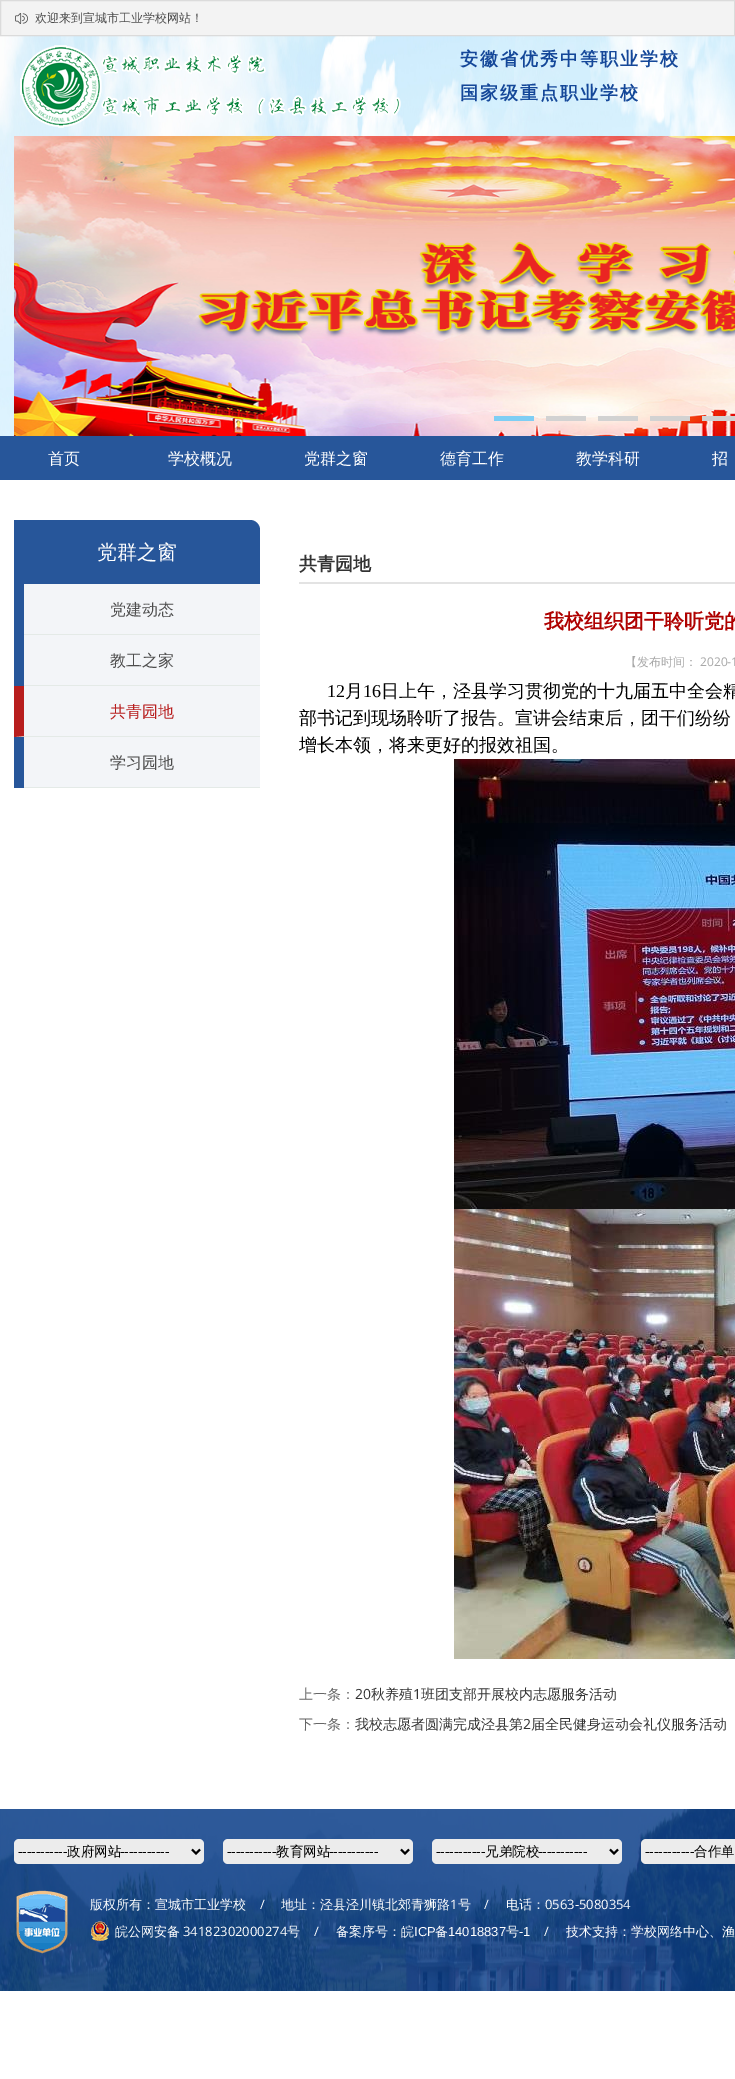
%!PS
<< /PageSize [735 2079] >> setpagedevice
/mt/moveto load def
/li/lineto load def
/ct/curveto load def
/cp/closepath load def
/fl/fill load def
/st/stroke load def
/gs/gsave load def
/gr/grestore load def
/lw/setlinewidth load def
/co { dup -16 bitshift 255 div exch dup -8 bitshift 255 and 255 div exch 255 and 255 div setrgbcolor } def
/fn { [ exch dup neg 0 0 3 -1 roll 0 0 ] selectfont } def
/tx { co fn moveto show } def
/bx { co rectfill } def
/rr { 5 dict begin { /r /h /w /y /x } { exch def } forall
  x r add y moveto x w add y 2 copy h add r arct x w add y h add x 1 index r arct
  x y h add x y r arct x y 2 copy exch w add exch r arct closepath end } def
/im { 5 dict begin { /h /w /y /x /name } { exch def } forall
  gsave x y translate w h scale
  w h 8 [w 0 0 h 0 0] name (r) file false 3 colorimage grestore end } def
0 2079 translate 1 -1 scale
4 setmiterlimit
0 0 735 2079 16#FFFFFF bx
(media/1.raw) 0 36 735 400 im
16#F3F3F3 co
.5 .5 mt 734.5 .5 li 734.5 35.5 li .5 35.5 li cp gs fl gr
16#DBDBDB co
st
(media/2.raw) 15 13 13 11 im
(media/3.raw) 20 45 381 83 im
(media/4.raw) 14 136 721 300 im
494 416 40 5 16#7ECEF4 bx
546 416 40 5 16#D2D2D2 bx
598 416 40 5 16#D2D2D2 bx
650 416 40 5 16#D2D2D2 bx
702 416 33 5 16#D2D2D2 bx
0 436 735 44 16#27569A bx
14 520 mt 250 520 li 255.5 520 260 524.5 260 530 ct 260 584 li 14 584 li cp fl
14 584 10 204 16#27569A bx
24 584 236 50 16#F3F5F8 bx
24 634 236 1 16#E4EAE7 bx
24 635 236 50 16#F3F5F8 bx
24 685 236 1 16#E4EAE7 bx
14 686 246 51 16#F3F5F8 bx
16#E4EAE7 co
260 737 mt 14 737 li 24 736 li 260 736 li cp fl
16#B81E1E co
14 737 mt 14 686 li 24 686 li 24 736 li cp fl
24 737 236 50 16#F3F5F8 bx
24 787 236 1 16#E4EAE7 bx
299 582 436 2 16#E3E3E3 bx
(media/5.raw) 454 759 281 450 im
(media/6.raw) 454 1209 281 450 im
(media/7.raw) 0 1809 735 182 im
16#ECECEC co
14 1839 190 25 5 rr fl
16#000000 co
2 lw
192 1849.5 mt 196 1853.5 li 200 1849.5 li st
16#ECECEC co
223 1839 190 25 5 rr fl
16#000000 co
401 1849.5 mt 405 1853.5 li 409 1849.5 li st
16#ECECEC co
432 1839 190 25 5 rr fl
16#000000 co
610 1849.5 mt 614 1853.5 li 618 1849.5 li st
16#ECECEC co
641 1839 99 25 5 rr fl
(media/8.raw) 16 1890 52 64 im
(media/9.raw) 91 1921 18 20 im
(欢迎来到宣城市工业学校网站！) 35 22 /WenQuanYiZenHei-Medium 12 16#4D4D4D tx
/WenQuanYiZenHei-Bold 18 fn
16#144799 co
460 65 mt 2 0 (安徽省优秀中等职业学校) ashow
460 99 mt 2 0 (国家级重点职业学校) ashow
(首页) 48 464 /WenQuanYiZenHei-Medium 16 16#FFFFFF tx
(学校概况) 168 464 /WenQuanYiZenHei-Medium 16 16#FFFFFF tx
(党群之窗) 304 464 /WenQuanYiZenHei-Medium 16 16#FFFFFF tx
(德育工作) 440 464 /WenQuanYiZenHei-Medium 16 16#FFFFFF tx
(教学科研) 576 464 /WenQuanYiZenHei-Medium 16 16#FFFFFF tx
(招) 712 464 /WenQuanYiZenHei-Medium 16 16#FFFFFF tx
(党群之窗) 97 559 /WenQuanYiZenHei-Medium 20 16#FFFFFF tx
(党建动态) 110 615 /WenQuanYiZenHei-Medium 16 16#4D4D4D tx
(教工之家) 110 666 /WenQuanYiZenHei-Medium 16 16#4D4D4D tx
(共青园地) 110 717 /WenQuanYiZenHei-Medium 16 16#B81E1E tx
(学习园地) 110 768 /WenQuanYiZenHei-Medium 16 16#4D4D4D tx
(共青园地) 299 570 /WenQuanYiZenHei-Bold 18 16#333333 tx
(我校组织团干聆听党的) 544 628 /WenQuanYiZenHei-Bold 20 16#AF0100 tx
(【发布时间：) 625 666 /WenQuanYiZenHei-Medium 12 16#A8A8A8 tx
(2020-1) 700 666 /OpenSans-Regular 12 16#A8A8A8 tx
(12) 327 697 /LiberationSerif-Regular 18 16#000000 tx
(月) 345 697 /WenQuanYiZenHei-Medium 18 16#000000 tx
(16) 363 697 /LiberationSerif-Regular 18 16#000000 tx
(日上午，泾县学习贯彻党的十九届五中全会精) 381 697 /WenQuanYiZenHei-Medium 18 16#000000 tx
(部书记到现场聆听了报告。宣讲会结束后，团干们纷纷) 299 724 /WenQuanYiZenHei-Medium 18 16#000000 tx
(增长本领，将来更好的报效祖国。) 299 751 /WenQuanYiZenHei-Medium 18 16#000000 tx
(上一条：) 299 1699 /WenQuanYiZenHei-Medium 14 16#666666 tx
(20) 355 1699 /OpenSans-Regular 14 16#333333 tx
(秋养殖) 371 1699 /WenQuanYiZenHei-Medium 14 16#333333 tx
(1) 413 1699 /OpenSans-Regular 14 16#333333 tx
(班团支部开展校内志愿服务活动) 421 1699 /WenQuanYiZenHei-Medium 14 16#333333 tx
(下一条：) 299 1729 /WenQuanYiZenHei-Medium 14 16#666666 tx
(我校志愿者圆满完成泾县第) 355 1729 /WenQuanYiZenHei-Medium 14 16#333333 tx
(2) 523 1729 /OpenSans-Regular 14 16#333333 tx
(届全民健身运动会礼仪服务活动) 531 1729 /WenQuanYiZenHei-Medium 14 16#333333 tx
(-----------) 18 1856 /LiberationSans-Regular 13.5 16#000000 tx
(政府网站) 67 1856 /WenQuanYiZenHei-Medium 13.5 16#000000 tx
(-----------) 120 1856 /LiberationSans-Regular 13.5 16#000000 tx
(-----------) 227 1856 /LiberationSans-Regular 13.5 16#000000 tx
(教育网站) 276 1856 /WenQuanYiZenHei-Medium 13.5 16#000000 tx
(-----------) 329 1856 /LiberationSans-Regular 13.5 16#000000 tx
(-----------) 436 1856 /LiberationSans-Regular 13.5 16#000000 tx
(兄弟院校) 485 1856 /WenQuanYiZenHei-Medium 13.5 16#000000 tx
(-----------) 538 1856 /LiberationSans-Regular 13.5 16#000000 tx
(-----------) 645 1856 /LiberationSans-Regular 13.5 16#000000 tx
(合作单) 694 1856 /WenQuanYiZenHei-Medium 13.5 16#000000 tx
(版权所有：宣城市工业学校) 90 1909 /WenQuanYiZenHei-Medium 13 16#FFFFFF tx
(/) 260 1909 /OpenSans-Regular 13 16#FFFFFF tx
(地址：泾县泾川镇北郊青狮路) 281 1909 /WenQuanYiZenHei-Medium 13 16#FFFFFF tx
(1) 450 1909 /OpenSans-Regular 13 16#FFFFFF tx
(号) 458 1909 /WenQuanYiZenHei-Medium 13 16#FFFFFF tx
(/) 484 1909 /OpenSans-Regular 13 16#FFFFFF tx
(电话：) 506 1909 /WenQuanYiZenHei-Medium 13 16#FFFFFF tx
(0563-5080354) 545 1909 /OpenSans-Regular 13 16#FFFFFF tx
(皖公网安备) 115 1936 /WenQuanYiZenHei-Medium 13 16#FFFFFF tx
(34182302000274) 183 1936 /OpenSans-Regular 13 16#FFFFFF tx
(号) 287 1936 /WenQuanYiZenHei-Medium 13 16#FFFFFF tx
(/) 314 1936 /OpenSans-Regular 13 16#FFFFFF tx
(备案序号：皖) 336 1936 /WenQuanYiZenHei-Medium 13 16#FFFFFF tx
(ICP) 414 1936 /LiberationSans-Regular 13 16#FFFFFF tx
(备) 435 1936 /WenQuanYiZenHei-Medium 13 16#FFFFFF tx
(14018837) 448 1936 /LiberationSans-Regular 13 16#FFFFFF tx
(号) 506 1936 /WenQuanYiZenHei-Medium 13 16#FFFFFF tx
(-1) 519 1936 /LiberationSans-Regular 13 16#FFFFFF tx
(/) 544 1936 /OpenSans-Regular 13 16#FFFFFF tx
(技术支持：学校网络中心、渔) 566 1936 /WenQuanYiZenHei-Medium 13 16#FFFFFF tx
showpage
